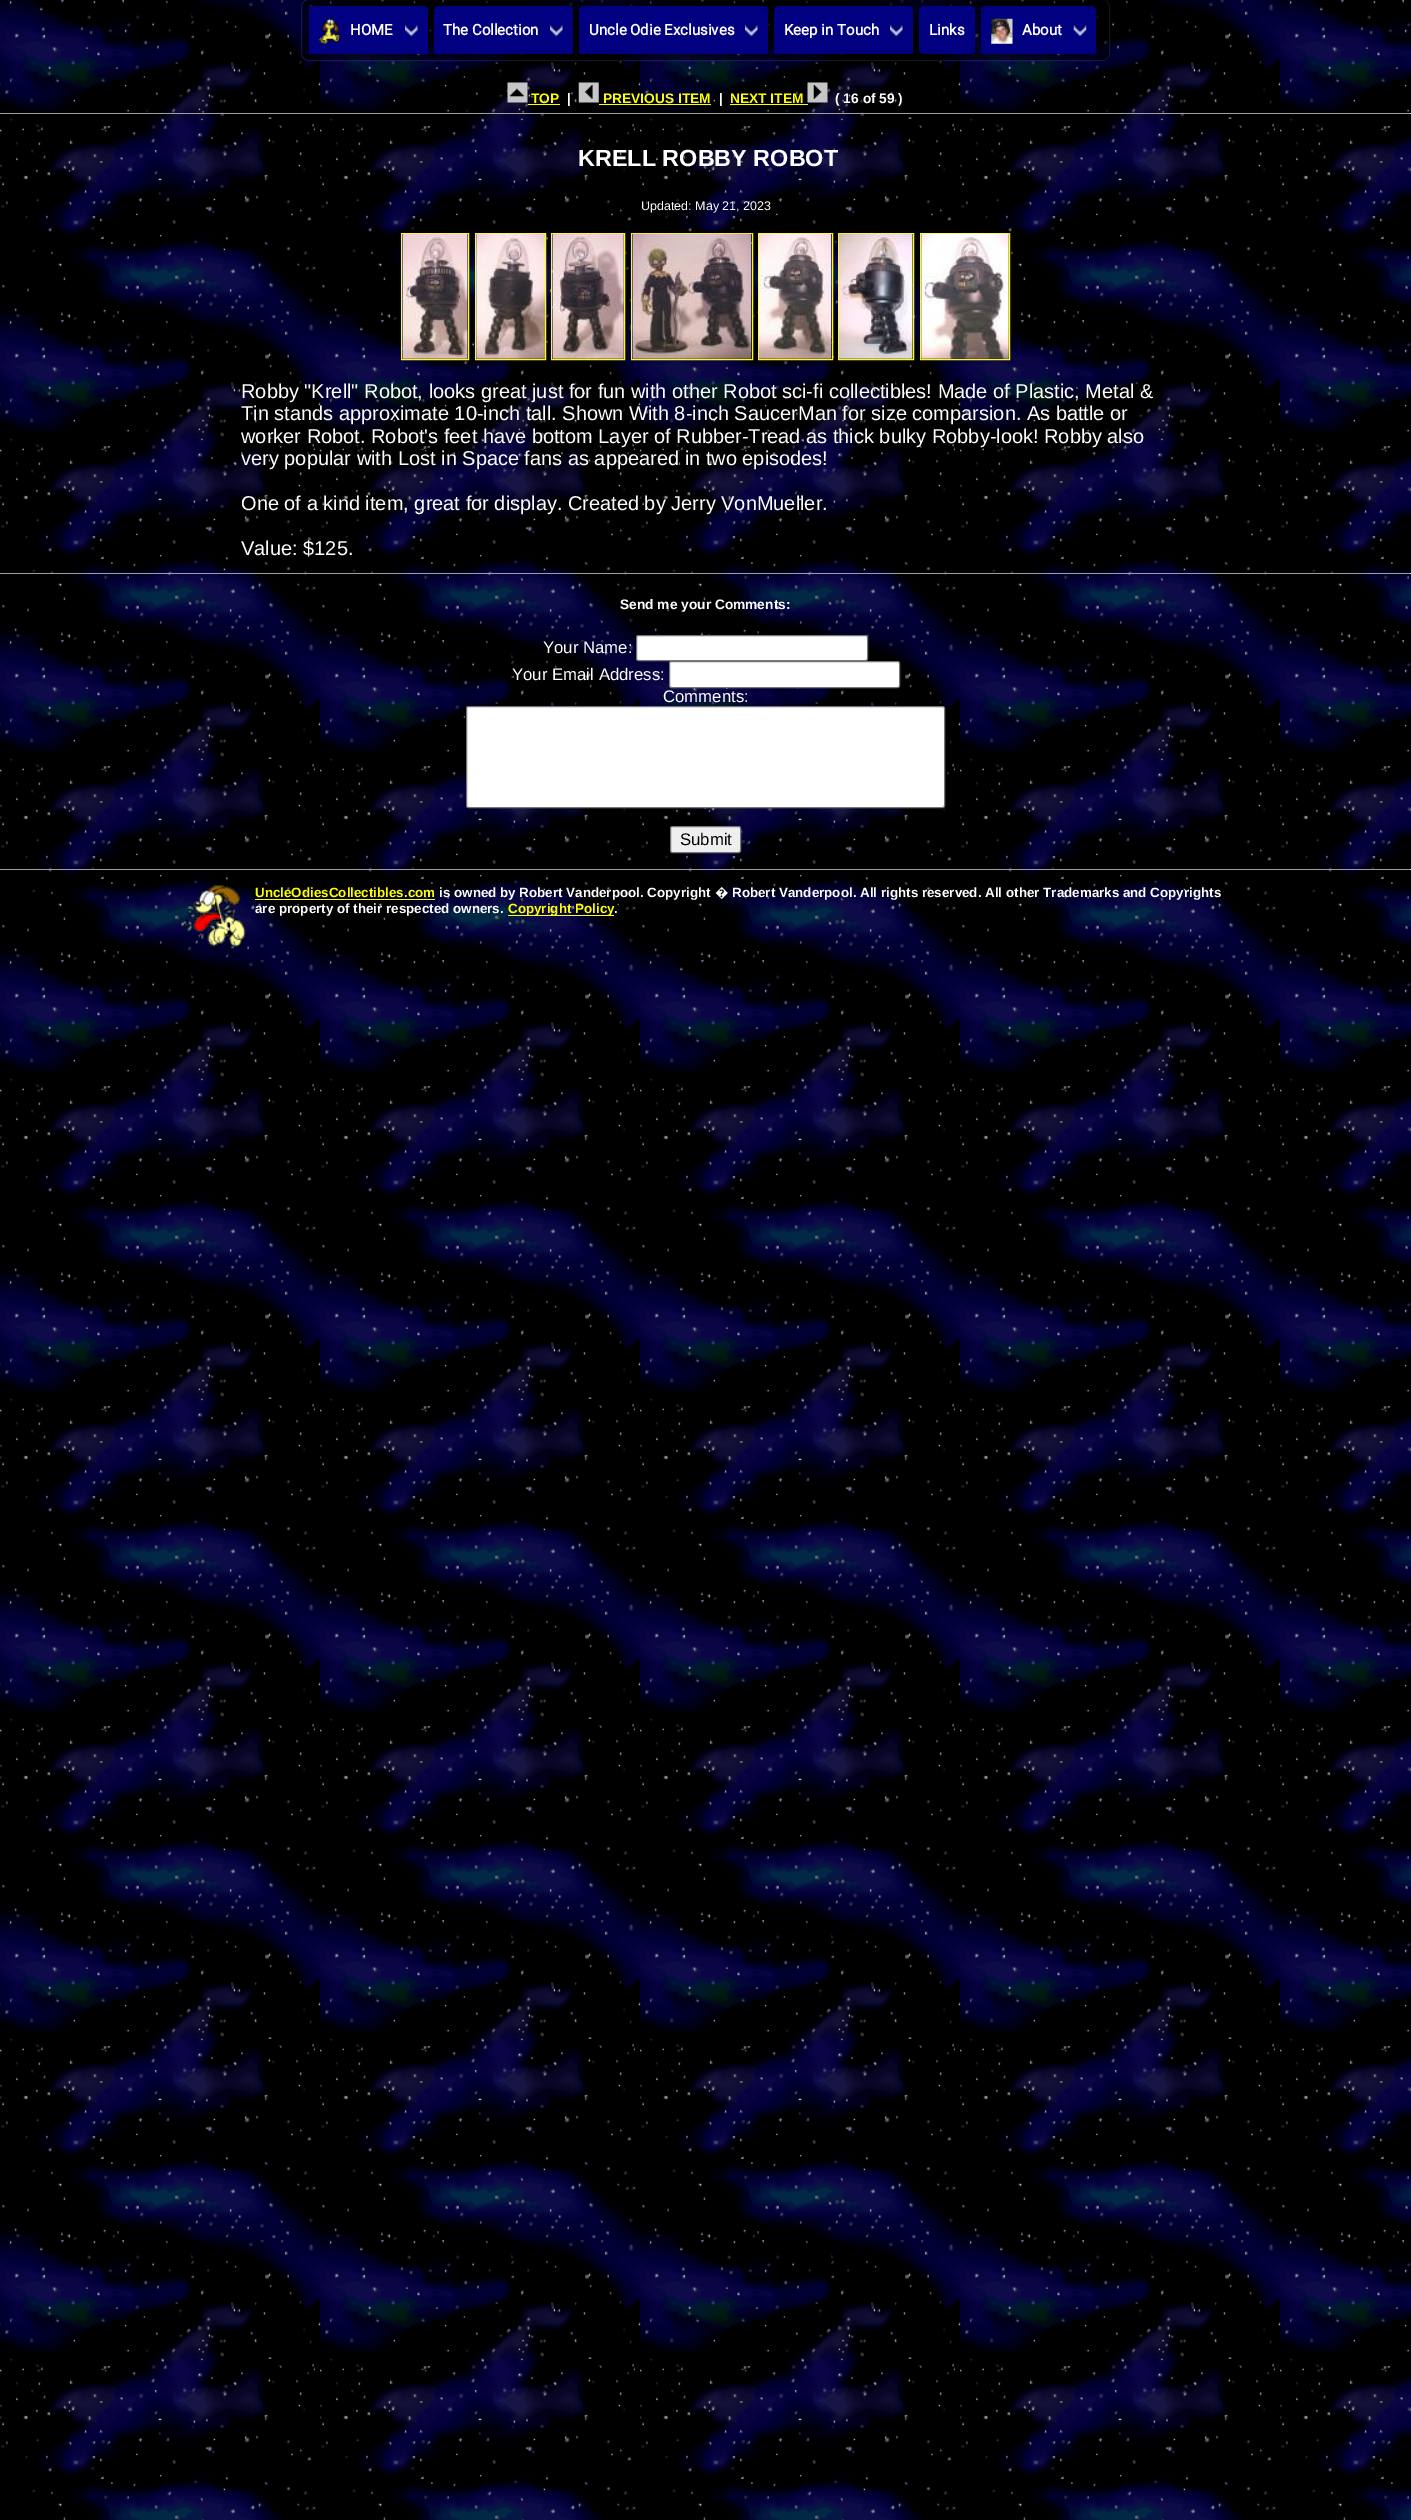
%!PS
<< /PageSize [1411 2520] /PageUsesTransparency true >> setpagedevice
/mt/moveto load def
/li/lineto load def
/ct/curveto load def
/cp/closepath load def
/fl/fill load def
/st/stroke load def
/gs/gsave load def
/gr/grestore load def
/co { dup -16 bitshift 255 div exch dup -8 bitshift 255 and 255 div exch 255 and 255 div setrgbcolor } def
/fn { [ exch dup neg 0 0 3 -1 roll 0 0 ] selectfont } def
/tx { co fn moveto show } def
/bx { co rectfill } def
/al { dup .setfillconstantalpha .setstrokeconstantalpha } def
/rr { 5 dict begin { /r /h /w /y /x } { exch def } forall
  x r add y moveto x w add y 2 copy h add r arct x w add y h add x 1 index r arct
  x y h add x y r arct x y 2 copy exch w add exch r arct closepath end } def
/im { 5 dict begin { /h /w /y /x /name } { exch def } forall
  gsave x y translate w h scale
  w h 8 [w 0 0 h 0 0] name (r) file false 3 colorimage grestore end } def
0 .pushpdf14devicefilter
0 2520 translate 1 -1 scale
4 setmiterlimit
0 0 1411 2520 16#FFFFFF bx
(media/1.raw) 0 0 1411 2520 im
0.08 al
301.5 -.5 808 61 7.5 rr st
0.5 al
16#000000 co
303 0 806 60 6 rr fl
1 al
16#000080 co
314 6 mt 423 6 li 426 6 428 8 428 11 ct 428 54 li 309 54 li 309 11 li 309 8 311 6 314 6 ct cp fl
(media/2.raw) 405 24 13 13 im
(media/3.raw) 318 18 22 26 im
439 6 mt 568 6 li 571 6 573 8 573 11 ct 573 54 li 434 54 li 434 11 li 434 8 436 6 439 6 ct cp fl
(media/4.raw) 550 24 13 13 im
584 6 mt 763 6 li 766 6 768 8 768 11 ct 768 54 li 579 54 li 579 11 li 579 8 581 6 584 6 ct cp fl
(media/4.raw) 745 24 13 13 im
779 6 mt 908 6 li 911 6 913 8 913 11 ct 913 54 li 774 54 li 774 11 li 774 8 776 6 779 6 ct cp fl
(media/2.raw) 890 24 13 13 im
919 6 56 48 5 rr fl
986 6 mt 1091 6 li 1094 6 1096 8 1096 11 ct 1096 54 li 981 54 li 981 11 li 981 8 983 6 986 6 ct cp fl
(media/5.raw) 1073 24 14 13 im
(media/6.raw) 991 18 22 26 im
(media/7.raw) 507 82 21 21 im
528 104 32 1 16#FFFF00 bx
(media/8.raw) 578 82 21 21 im
599 104 112 1 16#FFFF00 bx
730 104 78 1 16#FFFF00 bx
(media/9.raw) 807 82 21 21 im
0 113 1411 1 16#9F9F9F bx
1410 113 1 1 16#EEEEEE bx
16#FFFF00 co
401.5 233.5 67 126 rectstroke
(media/10.raw) 402 233 66 126 im
475.5 233.5 70 126 rectstroke
(media/11.raw) 476 233 69 126 im
551.5 233.5 73 126 rectstroke
(media/12.raw) 552 233 72 126 im
631.5 233.5 121 126 rectstroke
(media/13.raw) 632 233 120 126 im
758.5 233.5 74 126 rectstroke
(media/14.raw) 758 233 74 126 im
838.5 233.5 75 126 rectstroke
(media/15.raw) 838 233 75 126 im
920.5 233.5 89 126 rectstroke
(media/16.raw) 921 233 88 126 im
0 573 1411 1 16#9F9F9F bx
1410 573 1 1 16#EEEEEE bx
16#FFFFFF co
636.5 635.5 231 25 2 rr gs fl gr
16#767676 co
st
16#FFFFFF co
669.5 661.5 230 26 2 rr gs fl gr
16#767676 co
st
16#FFFFFF co
466.5 706.5 478 101 2 rr gs fl gr
16#767676 co
st
16#EFEFEF co
670.5 826.5 70 26 2 rr gs fl gr
16#767676 co
st
0 869 1411 1 16#9F9F9F bx
1410 869 1 1 16#EEEEEE bx
(media/17.raw) 181 885 65 62 im
255 899 180 1 16#FFFF00 bx
508 915 106 1 16#FFFF00 bx
(HOME) 350 35 /Roboto-Bold 15 16#FFFFFF tx
(The Collection) 443 35 /Roboto-Bold 15 16#FFFFFF tx
(Uncle Odie Exclusives) 589 35 /Roboto-Bold 15 16#FFFFFF tx
(Keep in Touch) 784 35 /Roboto-Bold 15 16#FFFFFF tx
(Links) 929 35 /Roboto-Bold 15 16#FFFFFF tx
(About) 1022 35 /Roboto-Bold 15 16#FFFFFF tx
(TOP) 531 103 /LiberationSans-Bold 13.75 16#FFFF00 tx
(|) 567 103 /LiberationSans-Bold 13.75 16#FFFFFF tx
(PREVIOUS ITEM) 603 103 /LiberationSans-Bold 13.75 16#FFFF00 tx
(|) 719 103 /LiberationSans-Bold 13.75 16#FFFFFF tx
(NEXT ITEM) 730 103 /LiberationSans-Bold 13.75 16#FFFF00 tx
(\( 16 of 59 \)) 835 103 /LiberationSans-Bold 13.75 16#FFFFFF tx
(KRELL ROBBY ROBOT) 578 166 /LiberationSans-Bold 23.4 16#FFFFFF tx
(Updated: May 21, 2023) 641 210 /LiberationSans-Regular 12.5 16#FFFFFF tx
(Robby "Krell" Robot, looks great just for fun with other Robot sci-fi collectibles! Made of Plastic, Metal &) 241 398 /LiberationSans-Regular 20 16#FFFFFF tx
(Tin stands approximate 10-inch tall. Shown With 8-inch SaucerMan for size comparsion. As battle or) 241 420 /LiberationSans-Regular 20 16#FFFFFF tx
(worker Robot. Robot's feet have bottom Layer of Rubber-Tread as thick bulky Robby-look! Robby also) 241 443 /LiberationSans-Regular 20 16#FFFFFF tx
(very popular with Lost in Space fans as appeared in two episodes!) 241 465 /LiberationSans-Regular 20 16#FFFFFF tx
(One of a kind item, great for display. Created by Jerry VonMueller.) 241 510 /LiberationSans-Regular 20 16#FFFFFF tx
(Value: $125.) 241 555 /LiberationSans-Regular 20 16#FFFFFF tx
(Send me your Comments:) 620 609 /LiberationSans-Bold 13.75 16#FFFFFF tx
(Your Name:) 543 653 /LiberationSans-Regular 16.75 16#FFFFFF tx
(Your Email Address:) 512 680 /LiberationSans-Regular 16.75 16#FFFFFF tx
(Comments:) 663 702 /LiberationSans-Regular 16.75 16#FFFFFF tx
(Submit) 680 845 /LiberationSans-Regular 16.75 16#000000 tx
(UncleOdiesCollectibles.com) 255 897 /LiberationSans-Bold 13.4 16#FFFF00 tx
(is owned by Robert Vanderpool. Copyright) 439 897 /LiberationSans-Bold 13.4 16#FFFFFF tx
(�) 715 897 /NotoSans-Bold 13.4 16#FFFFFF tx
(Robert Vanderpool. All rights reserved. All other Trademarks and Copyrights) 732 897 /LiberationSans-Bold 13.4 16#FFFFFF tx
(are property of their respected owners.) 255 913 /LiberationSans-Bold 13.4 16#FFFFFF tx
(Copyright Policy) 508 913 /LiberationSans-Bold 13.4 16#FFFF00 tx
(.) 614 913 /LiberationSans-Bold 13.4 16#FFFFFF tx
.poppdf14devicefilter showpage
